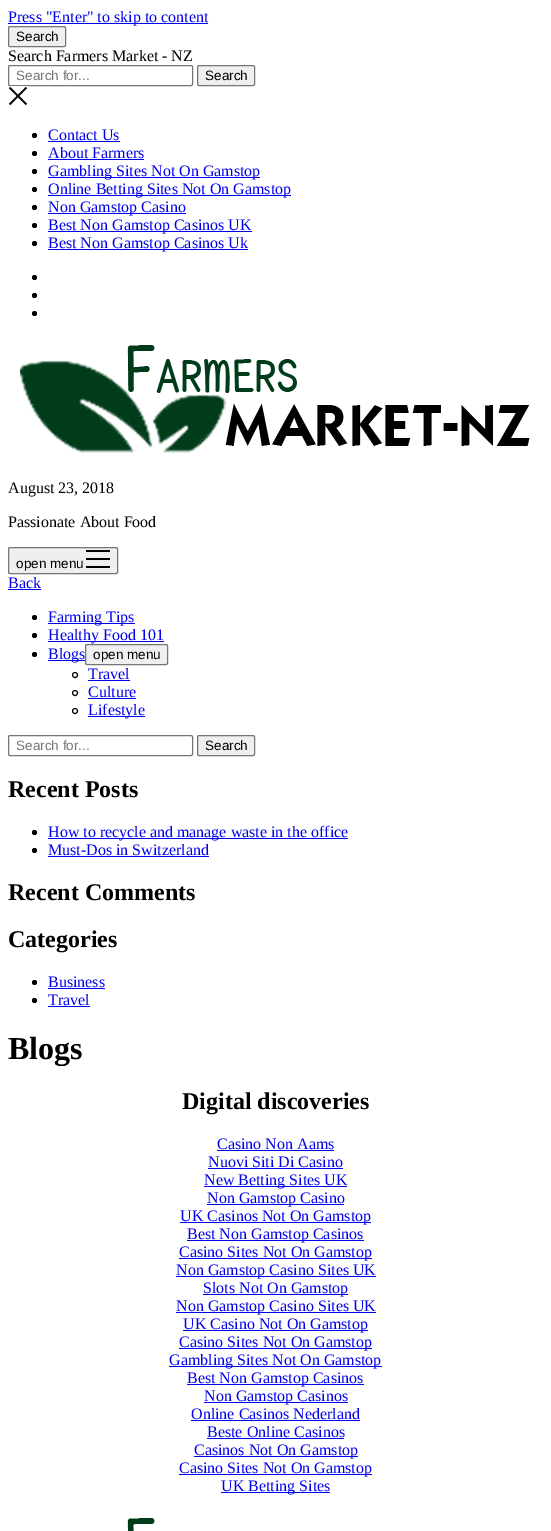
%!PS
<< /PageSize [551 1531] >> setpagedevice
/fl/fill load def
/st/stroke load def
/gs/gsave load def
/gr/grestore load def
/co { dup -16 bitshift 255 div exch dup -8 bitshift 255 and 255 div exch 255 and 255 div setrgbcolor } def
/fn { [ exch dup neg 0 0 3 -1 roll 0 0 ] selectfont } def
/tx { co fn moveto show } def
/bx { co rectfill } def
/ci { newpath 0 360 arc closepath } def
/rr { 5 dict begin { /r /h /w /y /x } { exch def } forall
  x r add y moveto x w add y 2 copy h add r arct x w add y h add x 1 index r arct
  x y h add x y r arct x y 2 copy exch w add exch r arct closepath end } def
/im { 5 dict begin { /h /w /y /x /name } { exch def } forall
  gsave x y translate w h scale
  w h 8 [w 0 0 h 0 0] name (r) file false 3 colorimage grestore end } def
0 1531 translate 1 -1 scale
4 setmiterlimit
0 0 551 1531 16#FFFFFF bx
8 23 200 1 16#0000EE bx
16#EFEFEF co
8.5 26.5 57 20 1.5 rr gs fl gr
16#767676 co
st
8.5 65.5 184 20 1.5 rr st
16#EFEFEF co
197.5 65.5 57 20 1.5 rr gs fl gr
16#767676 co
st
(media/1.raw) 8 86 20 20 im
16#000000 co
34.5 135.5 2.5 ci fl
48 141 72 1 16#0000EE bx
16#000000 co
34.5 153.5 2.5 ci fl
48 159 96 1 16#0000EE bx
16#000000 co
34.5 171.5 2.5 ci fl
48 177 212 1 16#0000EE bx
16#000000 co
34.5 189.5 2.5 ci fl
48 195 243 1 16#0000EE bx
16#000000 co
34.5 207.5 2.5 ci fl
48 213 138 1 16#0000EE bx
16#000000 co
34.5 225.5 2.5 ci fl
48 231 204 1 16#0000EE bx
16#000000 co
34.5 243.5 2.5 ci fl
48 249 200 1 16#0000EE bx
16#000000 co
34.5 277.5 2.5 ci fl
34.5 295.5 2.5 ci fl
34.5 313.5 2.5 ci fl
(media/2.raw) 20 345 510 108 im
16#EFEFEF co
8.5 547.5 109 26 1.5 rr gs fl gr
16#767676 co
st
86 550 24 2 16#000000 bx
86 558 24 2 16#000000 bx
86 566 24 2 16#000000 bx
8 589 33 1 16#0000EE bx
16#000000 co
34.5 617.5 2.5 ci fl
48 623 87 1 16#0000EE bx
16#000000 co
34.5 635.5 2.5 ci fl
48 641 116 1 16#0000EE bx
16#000000 co
34.5 654.5 2.5 ci fl
48 660 37 1 16#0000EE bx
16#EFEFEF co
85.5 644.5 82 20 1.5 rr gs fl gr
16#767676 co
st
16#000000 co
75 675 2.5 ci st
88 680 42 1 16#0000EE bx
16#000000 co
75 693 2.5 ci st
88 698 48 1 16#0000EE bx
16#000000 co
75 711 2.5 ci st
88 716 57 1 16#0000EE bx
16#767676 co
8.5 735.5 184 20 1.5 rr st
16#EFEFEF co
197.5 735.5 57 20 1.5 rr gs fl gr
16#767676 co
st
16#000000 co
34.5 832.5 2.5 ci fl
48 838 300 1 16#0000EE bx
16#000000 co
34.5 850.5 2.5 ci fl
48 856 161 1 16#0000EE bx
16#000000 co
34.5 982.5 2.5 ci fl
48 988 57 1 16#0000EE bx
16#000000 co
34.5 1000.5 2.5 ci fl
48 1006 42 1 16#0000EE bx
217 1150 117 1 16#0000EE bx
208 1168 135 1 16#0000EE bx
204 1186 143 1 16#0000EE bx
207 1204 137 1 16#0000EE bx
180 1222 191 1 16#0000EE bx
187 1240 177 1 16#0000EE bx
179 1258 193 1 16#0000EE bx
176 1276 200 1 16#0000EE bx
203 1294 145 1 16#0000EE bx
176 1312 200 1 16#0000EE bx
183 1330 185 1 16#0000EE bx
179 1348 193 1 16#0000EE bx
169 1366 213 1 16#0000EE bx
187 1384 177 1 16#0000EE bx
204 1402 144 1 16#0000EE bx
191 1420 169 1 16#0000EE bx
207 1438 137 1 16#0000EE bx
194 1456 164 1 16#0000EE bx
179 1474 193 1 16#0000EE bx
221 1492 109 1 16#0000EE bx
(media/3.raw) 127 1518 28 13 im
(Press "Enter" to skip to content) 8 22 /LiberationSerif-Regular 16 16#0000EE tx
(Search) 16 41 /LiberationSans-Regular 13.5 16#000000 tx
(Search Farmers Market - NZ) 8 61 /LiberationSerif-Regular 16 16#000000 tx
(Search for...) 16 80 /LiberationSans-Regular 13.5 16#757575 tx
(Search) 205 80 /LiberationSans-Regular 13.5 16#000000 tx
(Contact Us) 48 140 /LiberationSerif-Regular 16 16#0000EE tx
(About Farmers) 48 158 /LiberationSerif-Regular 16 16#0000EE tx
(Gambling Sites Not On Gamstop) 48 176 /LiberationSerif-Regular 16 16#0000EE tx
(Online Betting Sites Not On Gamstop) 48 194 /LiberationSerif-Regular 16 16#0000EE tx
(Non Gamstop Casino) 48 212 /LiberationSerif-Regular 16 16#0000EE tx
(Best Non Gamstop Casinos UK) 48 230 /LiberationSerif-Regular 16 16#0000EE tx
(Best Non Gamstop Casinos Uk) 48 248 /LiberationSerif-Regular 16 16#0000EE tx
(August 23, 2018) 8 493 /LiberationSerif-Regular 16 16#000000 tx
(Passionate About Food) 8 527 /LiberationSerif-Regular 16 16#000000 tx
(open menu) 16 568 /LiberationSans-Regular 13.5 16#000000 tx
(Back) 8 588 /LiberationSerif-Regular 16 16#0000EE tx
(Farming Tips) 48 622 /LiberationSerif-Regular 16 16#0000EE tx
(Healthy Food 101) 48 640 /LiberationSerif-Regular 16 16#0000EE tx
(Blogs) 48 659 /LiberationSerif-Regular 16 16#0000EE tx
(open menu) 93 659 /LiberationSans-Regular 13.5 16#000000 tx
(Travel) 88 679 /LiberationSerif-Regular 16 16#0000EE tx
(Culture) 88 697 /LiberationSerif-Regular 16 16#0000EE tx
(Lifestyle) 88 715 /LiberationSerif-Regular 16 16#0000EE tx
(Search for...) 16 750 /LiberationSans-Regular 13.5 16#757575 tx
(Search) 205 750 /LiberationSans-Regular 13.5 16#000000 tx
(Recent Posts) 8 797 /LiberationSerif-Bold 24 16#000000 tx
(How to recycle and manage waste in the office) 48 837 /LiberationSerif-Regular 16 16#0000EE tx
(Must-Dos in Switzerland) 48 855 /LiberationSerif-Regular 16 16#0000EE tx
(Recent Comments) 8 900 /LiberationSerif-Bold 24 16#000000 tx
(Categories) 8 947 /LiberationSerif-Bold 24 16#000000 tx
(Business) 48 987 /LiberationSerif-Regular 16 16#0000EE tx
(Travel) 48 1005 /LiberationSerif-Regular 16 16#0000EE tx
(Blogs) 8 1059 /LiberationSerif-Bold 32 16#000000 tx
(Digital discoveries) 182 1109 /LiberationSerif-Bold 24 16#000000 tx
(Casino Non Aams) 217 1149 /LiberationSerif-Regular 16 16#0000EE tx
(Nuovi Siti Di Casino) 208 1167 /LiberationSerif-Regular 16 16#0000EE tx
(New Betting Sites UK) 204 1185 /LiberationSerif-Regular 16 16#0000EE tx
(Non Gamstop Casino) 207 1203 /LiberationSerif-Regular 16 16#0000EE tx
(UK Casinos Not On Gamstop) 180 1221 /LiberationSerif-Regular 16 16#0000EE tx
(Best Non Gamstop Casinos) 187 1239 /LiberationSerif-Regular 16 16#0000EE tx
(Casino Sites Not On Gamstop) 179 1257 /LiberationSerif-Regular 16 16#0000EE tx
(Non Gamstop Casino Sites UK) 176 1275 /LiberationSerif-Regular 16 16#0000EE tx
(Slots Not On Gamstop) 203 1293 /LiberationSerif-Regular 16 16#0000EE tx
(Non Gamstop Casino Sites UK) 176 1311 /LiberationSerif-Regular 16 16#0000EE tx
(UK Casino Not On Gamstop) 183 1329 /LiberationSerif-Regular 16 16#0000EE tx
(Casino Sites Not On Gamstop) 179 1347 /LiberationSerif-Regular 16 16#0000EE tx
(Gambling Sites Not On Gamstop) 169 1365 /LiberationSerif-Regular 16 16#0000EE tx
(Best Non Gamstop Casinos) 187 1383 /LiberationSerif-Regular 16 16#0000EE tx
(Non Gamstop Casinos) 204 1401 /LiberationSerif-Regular 16 16#0000EE tx
(Online Casinos Nederland) 191 1419 /LiberationSerif-Regular 16 16#0000EE tx
(Beste Online Casinos) 207 1437 /LiberationSerif-Regular 16 16#0000EE tx
(Casinos Not On Gamstop) 194 1455 /LiberationSerif-Regular 16 16#0000EE tx
(Casino Sites Not On Gamstop) 179 1473 /LiberationSerif-Regular 16 16#0000EE tx
(UK Betting Sites) 221 1491 /LiberationSerif-Regular 16 16#0000EE tx
showpage
